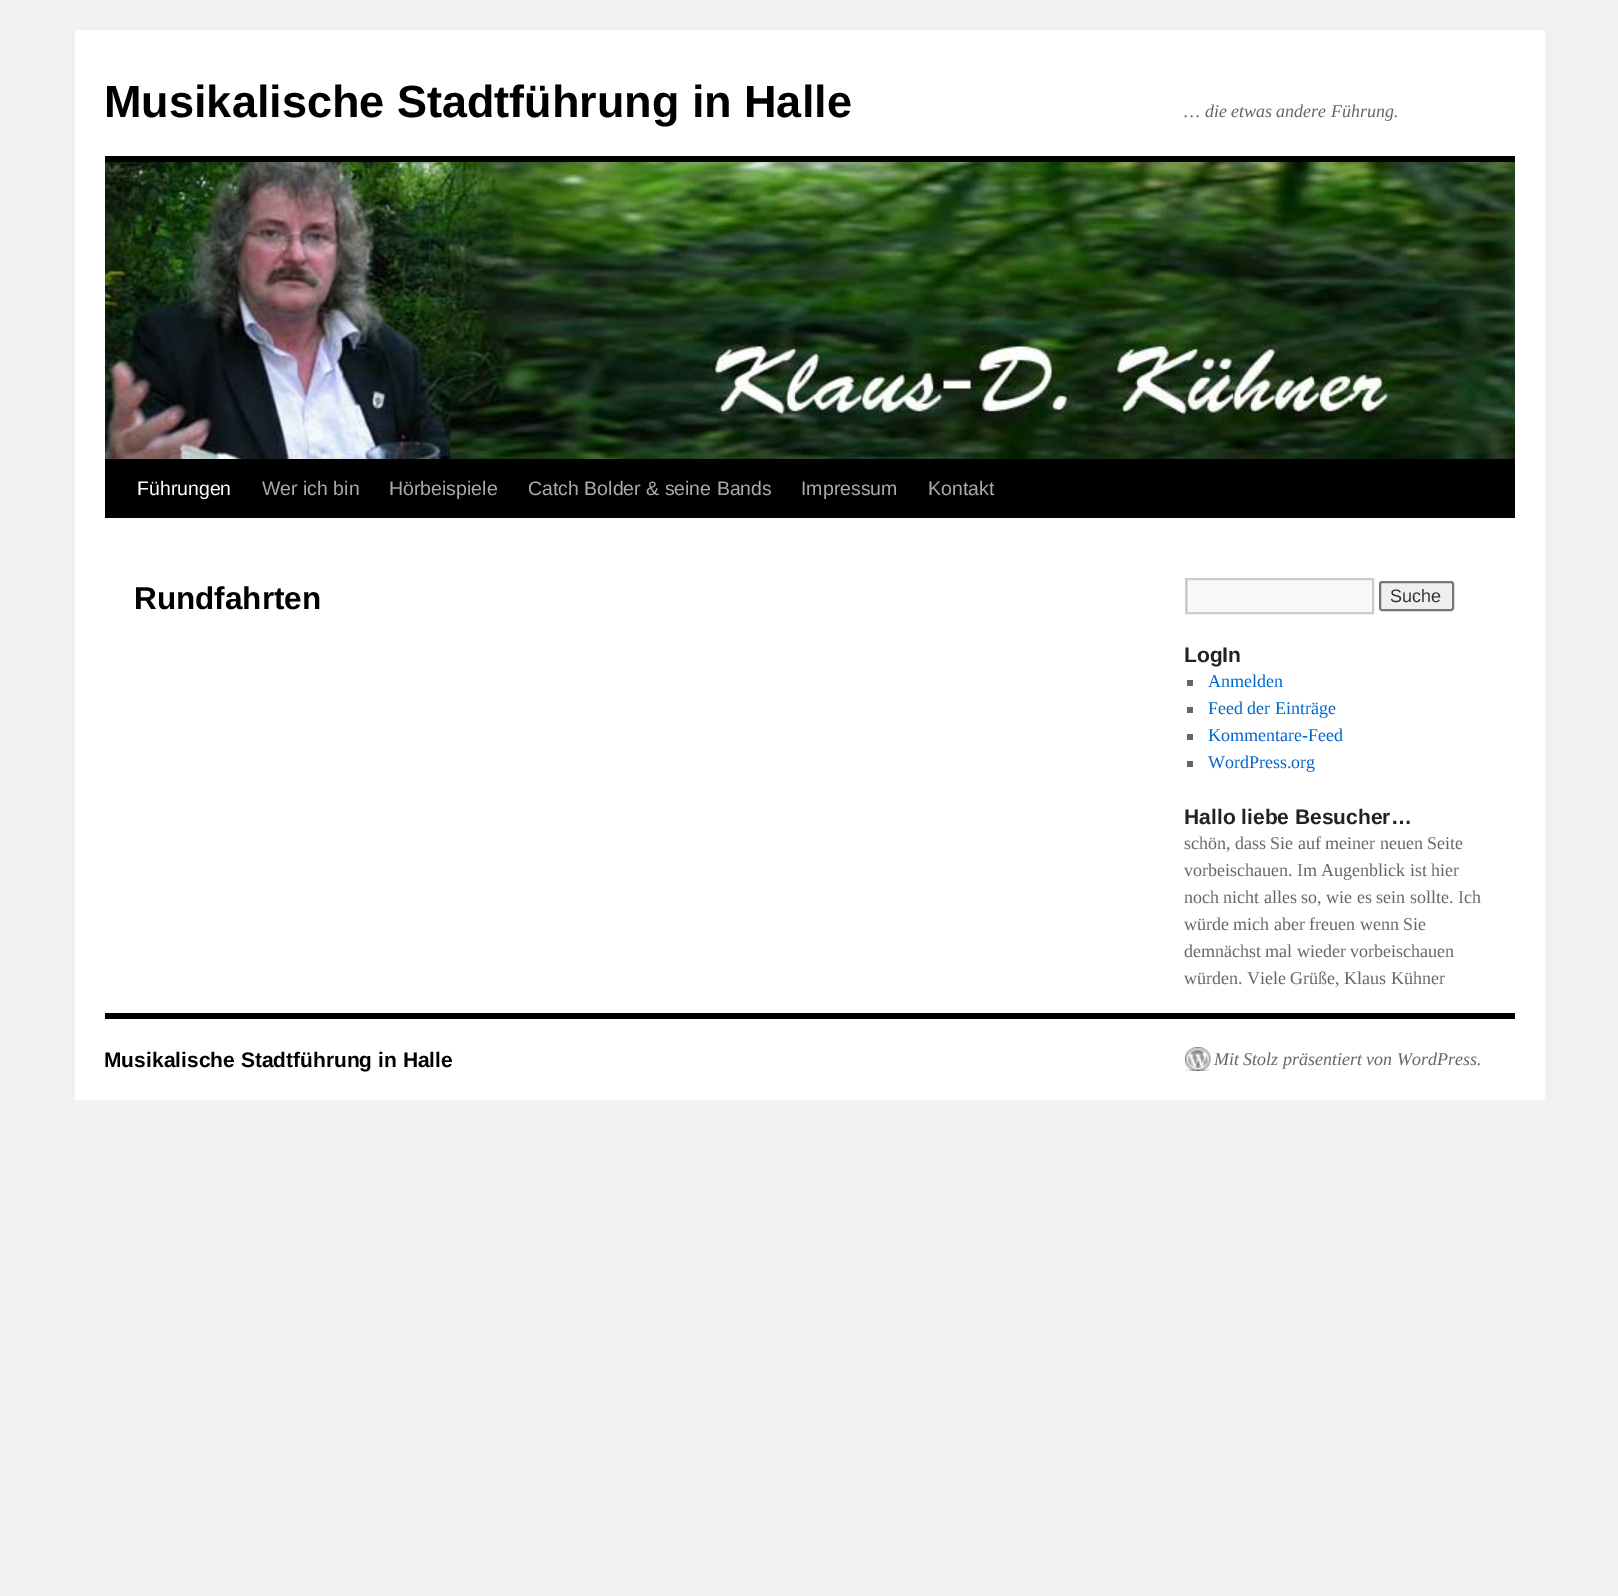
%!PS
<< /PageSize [1618 1596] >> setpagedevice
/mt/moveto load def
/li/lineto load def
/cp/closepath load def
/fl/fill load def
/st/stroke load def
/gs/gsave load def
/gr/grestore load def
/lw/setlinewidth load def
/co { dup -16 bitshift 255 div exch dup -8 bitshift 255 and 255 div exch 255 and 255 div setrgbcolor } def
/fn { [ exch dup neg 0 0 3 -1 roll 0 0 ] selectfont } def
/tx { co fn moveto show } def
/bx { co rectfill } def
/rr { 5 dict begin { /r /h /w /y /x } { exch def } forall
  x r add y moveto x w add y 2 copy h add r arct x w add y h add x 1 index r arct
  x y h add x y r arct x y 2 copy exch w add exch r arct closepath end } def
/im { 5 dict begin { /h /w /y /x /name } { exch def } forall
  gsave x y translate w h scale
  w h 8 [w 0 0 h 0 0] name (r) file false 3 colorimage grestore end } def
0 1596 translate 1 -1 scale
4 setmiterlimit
0 0 1618 1596 16#F1F1F1 bx
75 30 1470 1070 16#FFFFFF bx
105 156 1410 6 16#000000 bx
105 459 1410 59 16#000000 bx
(media/1.raw) 105 162 1410 297 im
1188 580 184 32 16#F9F9F9 bx
gs
1187 579 186 33 rectclip
16#E0E0E0 co
1038 430 mt 1521 430 li 1521 760 li 1038 760 li cp 1188 580 mt 1374 580 li 1374 614 li 1188 614 li cp eofill
gr
16#CCCCCC co
2 lw
1186 579 187 34 rectstroke
16#EFEFEF co
1380 582 73 28 2 rr gs fl gr
16#767676 co
st
1187 680 6 6 16#666666 bx
1187 707 6 6 16#666666 bx
1187 734 6 6 16#666666 bx
1187 761 6 6 16#666666 bx
105 1013 1410 6 16#000000 bx
(media/2.raw) 1185 1047 26 24 im
(Musikalische Stadtführung in Halle) 104 117 /LiberationSans-Bold 45 16#000000 tx
(… die etwas andere Führung.) 1184 117 /LiberationSerif-Italic 18 16#666666 tx
(Führungen) 137 495 /LiberationSans-Regular 19.5 16#FFFFFF tx
(Wer ich bin) 262 495 /LiberationSans-Regular 19.5 16#AAAAAA tx
(Hörbeispiele) 389 495 /LiberationSans-Regular 19.5 16#AAAAAA tx
(Catch Bolder & seine Bands) 528 495 /LiberationSans-Regular 19.5 16#AAAAAA tx
(Impressum) 801 495 /LiberationSans-Regular 19.5 16#AAAAAA tx
(Kontakt) 928 495 /LiberationSans-Regular 19.5 16#AAAAAA tx
(Rundfahrten) 134 609 /LiberationSans-Bold 31.5 16#000000 tx
(Suche) 1390 602 /LiberationSans-Regular 18 16#333333 tx
(LogIn) 1184 662 /LiberationSans-Bold 21 16#222222 tx
(Anmelden) 1208 687 /LiberationSerif-Regular 18 16#0066CC tx
(Feed der Einträge) 1208 714 /LiberationSerif-Regular 18 16#0066CC tx
(Kommentare-Feed) 1208 741 /LiberationSerif-Regular 18 16#0066CC tx
(WordPress.org) 1208 768 /LiberationSerif-Regular 18 16#0066CC tx
(Hallo liebe Besucher…) 1184 824 /LiberationSans-Bold 21 16#222222 tx
(schön, dass Sie auf meiner neuen Seite) 1184 849 /LiberationSerif-Regular 18 16#666666 tx
(vorbeischauen. Im Augenblick ist hier) 1184 876 /LiberationSerif-Regular 18 16#666666 tx
(noch nicht alles so, wie es sein sollte. Ich) 1184 903 /LiberationSerif-Regular 18 16#666666 tx
(würde mich aber freuen wenn Sie) 1184 930 /LiberationSerif-Regular 18 16#666666 tx
(demnächst mal wieder vorbeischauen) 1184 957 /LiberationSerif-Regular 18 16#666666 tx
(würden. Viele Grüße, Klaus Kühner) 1184 984 /LiberationSerif-Regular 18 16#666666 tx
(Musikalische Stadtführung in Halle) 104 1067 /LiberationSans-Bold 21 16#000000 tx
(Mit Stolz präsentiert von WordPress.) 1214 1065 /LiberationSerif-Italic 18 16#666666 tx
showpage
